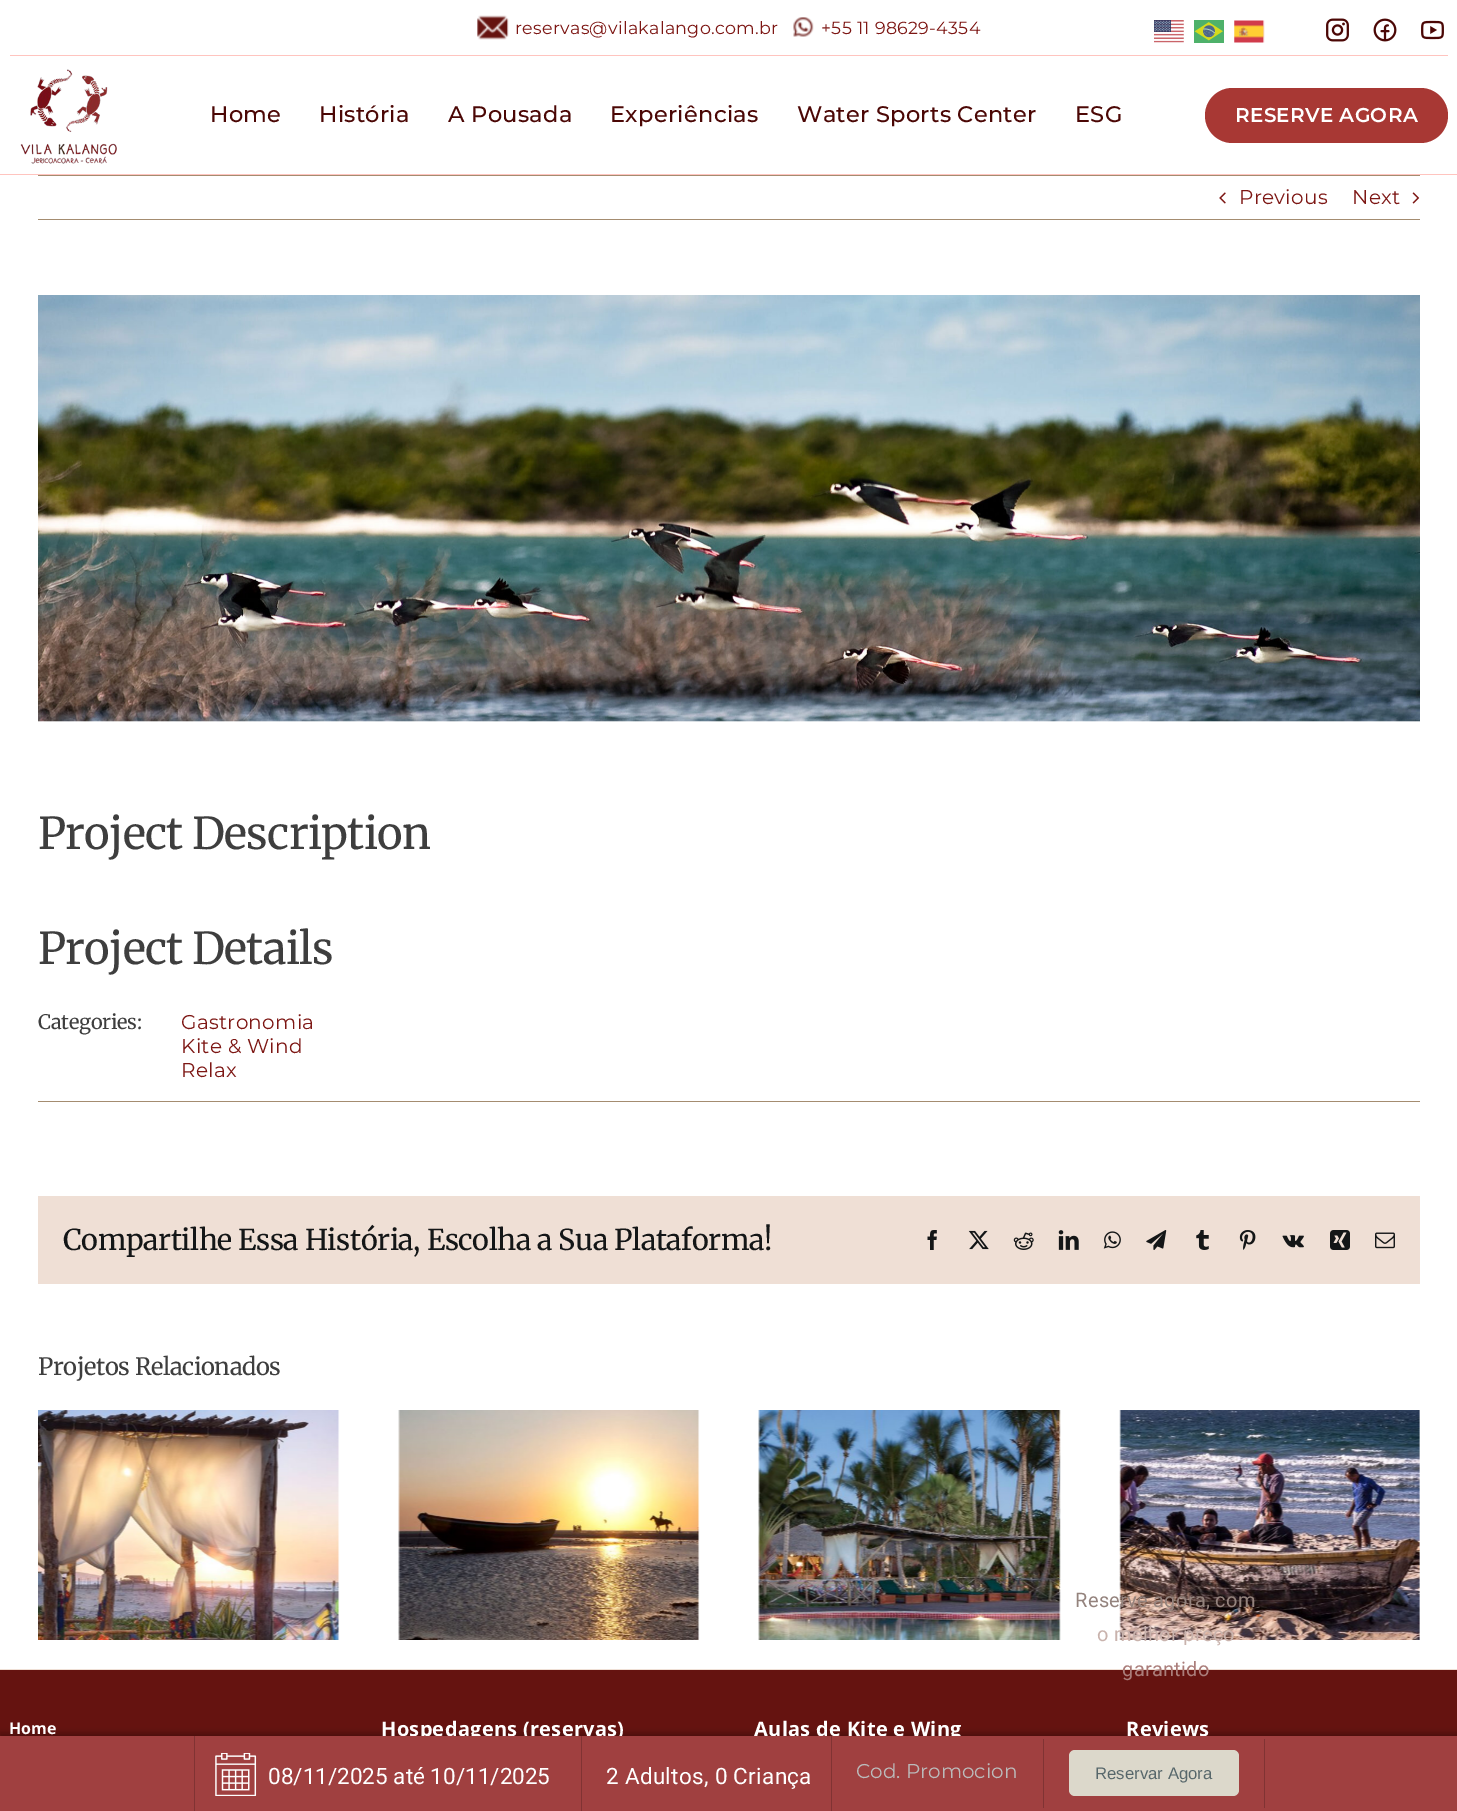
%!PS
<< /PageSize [1457 1811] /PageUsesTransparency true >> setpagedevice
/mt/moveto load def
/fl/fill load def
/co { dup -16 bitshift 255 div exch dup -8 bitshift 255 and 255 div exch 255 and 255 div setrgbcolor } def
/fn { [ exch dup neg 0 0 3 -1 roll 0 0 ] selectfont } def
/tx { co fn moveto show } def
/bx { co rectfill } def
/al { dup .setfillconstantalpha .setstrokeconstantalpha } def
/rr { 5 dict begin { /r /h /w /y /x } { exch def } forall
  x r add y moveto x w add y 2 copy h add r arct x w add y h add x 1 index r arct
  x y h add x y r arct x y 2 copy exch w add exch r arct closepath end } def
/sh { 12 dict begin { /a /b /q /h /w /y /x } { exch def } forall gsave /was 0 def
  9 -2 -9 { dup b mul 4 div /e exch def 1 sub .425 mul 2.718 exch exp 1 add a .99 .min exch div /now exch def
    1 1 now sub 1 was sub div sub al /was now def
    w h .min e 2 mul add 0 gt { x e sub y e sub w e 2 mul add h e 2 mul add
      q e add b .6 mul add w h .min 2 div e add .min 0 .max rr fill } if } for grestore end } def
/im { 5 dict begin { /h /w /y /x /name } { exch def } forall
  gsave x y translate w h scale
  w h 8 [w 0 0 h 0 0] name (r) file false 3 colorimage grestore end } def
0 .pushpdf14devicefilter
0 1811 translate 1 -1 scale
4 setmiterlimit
0 0 1457 1811 16#FFFFFF bx
0 174 1457 1 16#FFC4BF bx
(media/1.raw) 477 15 32 25 im
(media/2.raw) 793 17 21 20 im
(media/3.raw) 1154 20 30 23 im
(media/4.raw) 1194 20 30 23 im
(media/5.raw) 1234 20 31 23 im
(media/6.raw) 1326 18 23 24 im
(media/7.raw) 1373 18 24 24 im
(media/8.raw) 1421 20 23 20 im
10 55 1438 1 16#FFC4BF bx
(media/9.raw) 20 69 97 95 im
16#A83834 co
1205 88 243 55 27.5 rr fl
38 175 1382 1 16#A48C70 bx
38 219 1382 1 16#A48C70 bx
(media/10.raw) 1219 192 7 12 im
(media/11.raw) 1412 192 8 12 im
(media/12.raw) 38 295 1382 427 im
38 1101 1382 1 16#A48C70 bx
38 1196 1382 88 16#EFDFD5 bx
(media/13.raw) 927 1230 10 20 im
(media/14.raw) 968 1230 21 20 im
(media/15.raw) 1013 1232 21 18 im
(media/16.raw) 1058 1230 21 20 im
(media/17.raw) 1103 1231 18 18 im
(media/18.raw) 1146 1230 21 20 im
(media/19.raw) 1196 1230 13 20 im
(media/20.raw) 1239 1230 17 20 im
(media/21.raw) 1282 1235 22 13 im
(media/22.raw) 1330 1230 20 20 im
(media/23.raw) 1375 1232 20 17 im
(media/24.raw) 38 1410 302 230 im
(media/25.raw) 398 1410 302 230 im
(media/26.raw) 758 1410 303 230 im
(media/27.raw) 1119 1410 301 230 im
0 1670 1457 66 16#651310 bx
0 1669 1457 1 16#EFDFD5 bx
16#000000 co
0 1733 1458 75 0 3 .25 sh
/Montserrat-Regular 17.5 fn
16#7D1714 co
515 34 mt .3 0 (reservas@vilakalango.com.br) ashow
821 34 mt .3 0 (+55 11 98629-4354) ashow
/Montserrat-Medium 22.5 fn
16#4B0705 co
210 122 mt .3 0 (Home) ashow
319 122 mt .3 0 (História) ashow
448 122 mt .3 0 (A Pousada) ashow
610 122 mt .3 0 (Experiências) ashow
797 122 mt .3 0 (Water Sports Center) ashow
1075 122 mt .3 0 (ESG) ashow
/Montserrat-SemiBold 20 fn
16#FFFFFF co
1235 122 mt .3 0 (RESERVE AGORA) ashow
/Montserrat-Regular 20 fn
16#7D1714 co
1239 204 mt .3 0 (Previous) ashow
1352 204 mt .3 0 (Next) ashow
/Merriweather-Light 43.75 fn
16#3E3E3E co
38 849 mt -.7 0 (Project Description) ashow
38 964 mt -.7 0 (Project Details) ashow
/Merriweather-Light 20 fn
38 1029 mt -.25 0 (Categories:) ashow
/Montserrat-Regular 20 fn
16#7D1714 co
181 1029 mt .3 0 (Gastronomia) ashow
181 1053 mt .3 0 (Kite & Wind) ashow
181 1077 mt .3 0 (Relax) ashow
/Merriweather-Light 28.75 fn
16#141617 co
63 1250 mt -.43 0 (Compartilhe Essa História, Escolha a Sua Plataforma!) ashow
/Merriweather-Light 23.75 fn
16#3E3E3E co
38 1375 mt -.4 0 (Projetos Relacionados) ashow
(Home) 9 1734 /OpenSans-Bold 16 16#FFFFFF tx
/OpenSans-Bold 20 fn
381 1736 mt .3 0 (Hospedagens \(reservas\)) ashow
754 1736 mt .3 0 (Aulas de Kite e Wing) ashow
1126 1736 mt .3 0 (Reviews) ashow
0 1736 1457 75 16#A04040 bx
581 1736 1 75 16#803333 bx
194 1736 1 75 16#803333 bx
(media/28.raw) 215 1753 42 43 im
(08/11/2025 até 10/11/2025) 268 1784 /Roboto-Regular 22.5 16#FFFFFF tx
831 1736 1 75 16#803333 bx
16#FFFFFF co
606 1784 mt .3 0 (2 Adultos, 0 Criança) ashow
(Cod. Promocion) 856 1778 /Montserrat-Regular 20 16#BBBBBB tx
1264 1739 1 69 16#803333 bx
1043 1739 1 69 16#803333 bx
/Roboto-Regular 20 fn
16#94837D co
1075 1607 mt .3 0 (Reserve agora, com) ashow
16#C9B3AD co
1097 1641 mt .3 0 (o melhor preço) ashow
16#AA7D7A co
1122 1676 mt .3 0 (garantido) ashow
16#DCD8CB co
1069 1750 170 46 6 rr fl
(Reservar Agora) 1095 1779 /LiberationSans-Regular 16.75 16#57676B tx
.poppdf14devicefilter showpage
